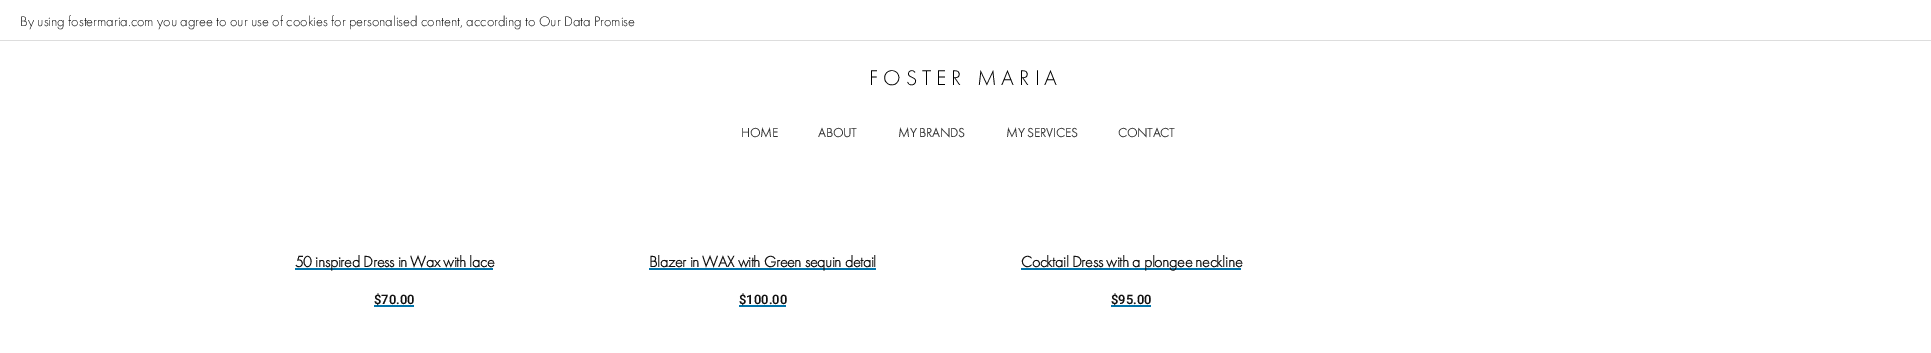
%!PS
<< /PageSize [1931 353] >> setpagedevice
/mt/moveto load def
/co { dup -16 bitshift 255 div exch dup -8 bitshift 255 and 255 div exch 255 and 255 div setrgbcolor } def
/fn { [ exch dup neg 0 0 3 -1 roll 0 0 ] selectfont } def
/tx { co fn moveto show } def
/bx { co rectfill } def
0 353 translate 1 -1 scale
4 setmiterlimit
0 0 1931 353 16#FFFFFF bx
0 40 1931 1 16#DDDDDD bx
295 268 198 2 16#0073AA bx
374 305 40 2 16#0073AA bx
649 268 227 2 16#0073AA bx
739 305 47 2 16#0073AA bx
1021 268 220 2 16#0073AA bx
1111 305 40 2 16#0073AA bx
(By using fostermaria.com you agree to our use of cookies for personalised content, according to Our Data Promise) 20 26 /FuturaPT-Light 14.4 16#111111 tx
/FuturaPT-Light 22 fn
16#000000 co
869 85 mt 5 0 (FOSTER MARIA) ashow
(HOME) 741 137 /FuturaPT-Bold 13 16#333333 tx
(ABOUT) 818 137 /FuturaPT-Bold 13 16#333333 tx
(MY BRANDS) 898 137 /FuturaPT-Bold 13 16#333333 tx
(MY SERVICES) 1006 137 /FuturaPT-Bold 13 16#333333 tx
(CONTACT) 1118 137 /FuturaPT-Bold 13 16#333333 tx
/FuturaPT-Bold 16 fn
16#111111 co
295 267 mt -.3 0 (50 inspired Dress in Wax with lace) ashow
($70.00) 374 304 /Roboto-SemiBold 13 16#111111 tx
/FuturaPT-Bold 16 fn
649 267 mt -.3 0 (Blazer in WAX with Green sequin detail) ashow
($100.00) 739 304 /Roboto-SemiBold 13 16#111111 tx
/FuturaPT-Bold 16 fn
1021 267 mt -.3 0 (Cocktail Dress with a plongee neckline) ashow
($95.00) 1111 304 /Roboto-SemiBold 13 16#111111 tx
showpage
